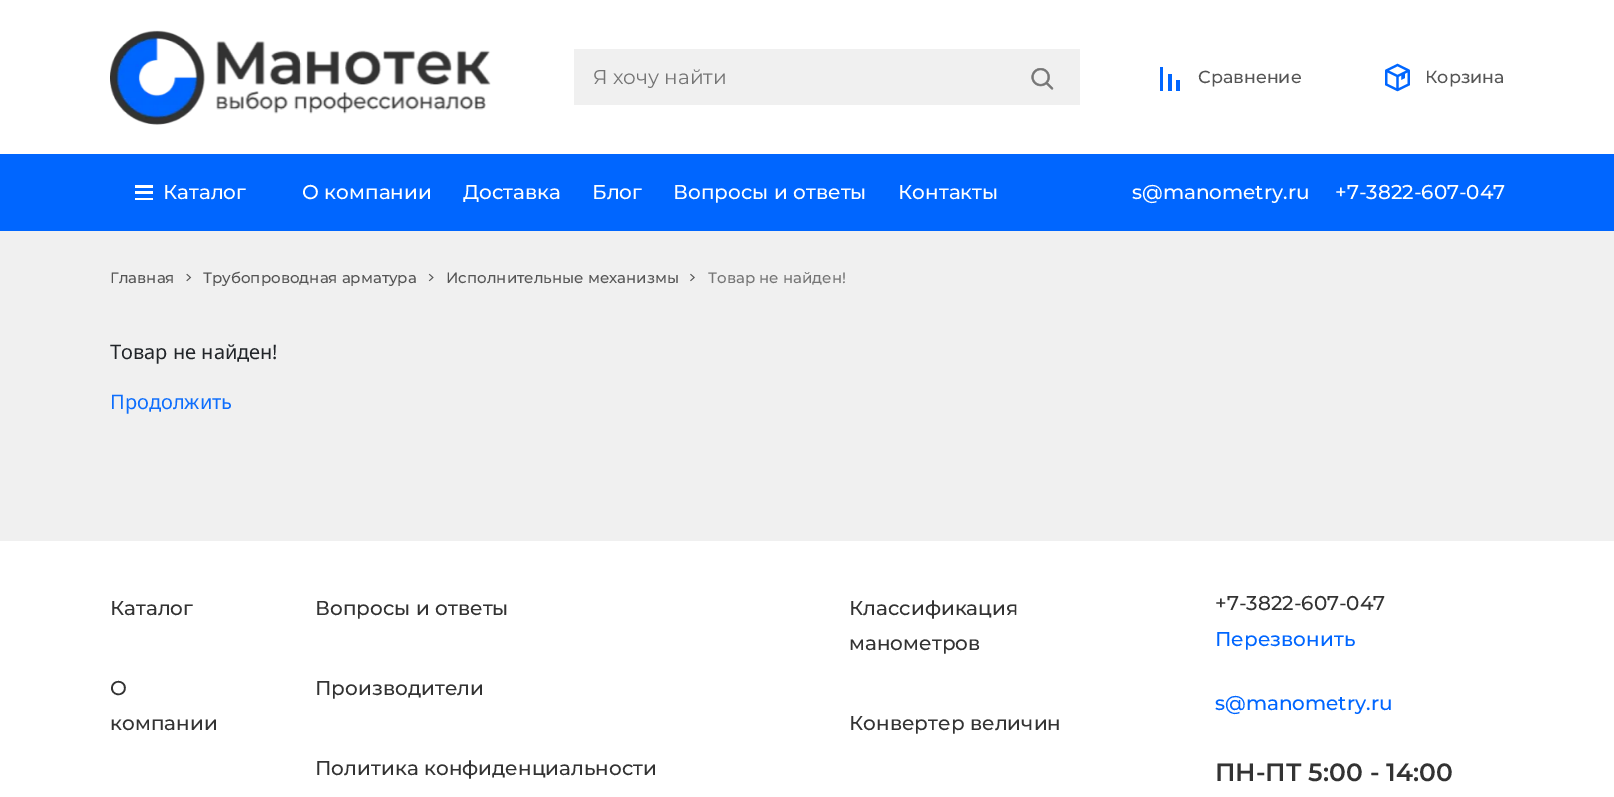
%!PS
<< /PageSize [1614 797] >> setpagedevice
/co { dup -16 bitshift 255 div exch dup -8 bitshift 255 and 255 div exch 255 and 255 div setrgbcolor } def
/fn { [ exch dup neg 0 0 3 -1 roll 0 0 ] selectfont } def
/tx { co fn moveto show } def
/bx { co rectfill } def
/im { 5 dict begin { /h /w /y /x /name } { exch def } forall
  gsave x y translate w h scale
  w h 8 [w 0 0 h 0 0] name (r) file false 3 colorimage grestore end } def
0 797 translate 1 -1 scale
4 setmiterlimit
0 0 1614 797 16#F0F0F0 bx
0 0 1614 154 16#FFFFFF bx
(media/1.raw) 110 30 381 95 im
574 49 506 56 16#F0F0F0 bx
(media/2.raw) 1031 68 23 22 im
1160 67 3 24 16#0066FF bx
1168 74 4 17 16#0066FF bx
1176 80 4 11 16#0066FF bx
(media/3.raw) 1385 63 25 29 im
0 154 1614 77 16#0066FF bx
135 185 18 3 16#FFFFFF bx
135 191 18 3 16#FFFFFF bx
135 198 18 2 16#FFFFFF bx
(media/4.raw) 186 273 6 9 im
(media/5.raw) 428 273 6 9 im
(media/6.raw) 690 273 5 9 im
0 541 1614 256 16#FFFFFF bx
(Я хочу найти) 593 84 /Montserrat-Regular 20 16#757575 tx
(Сравнение) 1198 83 /Montserrat-Medium 17.5 16#555555 tx
(Корзина) 1425 83 /Montserrat-Medium 17.5 16#555555 tx
(Каталог) 163 199 /Montserrat-Medium 20 16#FFFFFF tx
(О компании) 302 199 /Montserrat-Medium 20 16#FFFFFF tx
(Доставка) 463 199 /Montserrat-Medium 20 16#FFFFFF tx
(Блог) 592 199 /Montserrat-Medium 20 16#FFFFFF tx
(Вопросы и ответы) 673 199 /Montserrat-Medium 20 16#FFFFFF tx
(Контакты) 898 199 /Montserrat-Medium 20 16#FFFFFF tx
(s@manometry.ru) 1132 199 /Montserrat-Medium 20 16#FFFFFF tx
(+7-3822-607-047) 1335 199 /Montserrat-Medium 20 16#FFFFFF tx
(Главная) 110 283 /Montserrat-Medium 15 16#555555 tx
(Трубопроводная арматура) 203 283 /Montserrat-Medium 15 16#555555 tx
(Исполнительные механизмы) 446 283 /Montserrat-Medium 15 16#555555 tx
(Товар не найден!) 708 283 /Montserrat-Medium 15 16#757575 tx
(Товар не найден!) 110 359 /NotoSans-Regular 20 16#212529 tx
(Продолжить) 110 409 /NotoSans-Regular 20 16#0D6EFD tx
(Каталог) 110 615 /Montserrat-Medium 20 16#333333 tx
(О) 110 695 /Montserrat-Medium 20 16#333333 tx
(компании) 110 730 /Montserrat-Medium 20 16#333333 tx
(Вопросы и ответы) 315 615 /Montserrat-Medium 20 16#333333 tx
(Производители) 315 695 /Montserrat-Medium 20 16#333333 tx
(Политика конфиденциальности) 315 775 /Montserrat-Medium 20 16#333333 tx
(Классификация) 849 615 /Montserrat-Medium 20 16#333333 tx
(манометров) 849 650 /Montserrat-Medium 20 16#333333 tx
(Конвертер величин) 849 730 /Montserrat-Medium 20 16#333333 tx
(+7-3822-607-047) 1215 610 /Montserrat-Medium 20 16#333333 tx
(Перезвонить) 1215 646 /Montserrat-Medium 20 16#0066FF tx
(s@manometry.ru) 1215 710 /Montserrat-Medium 20 16#0066FF tx
(ПН-ПТ 5:00 - 14:00) 1215 781 /Montserrat-SemiBold 25 16#333333 tx
showpage
